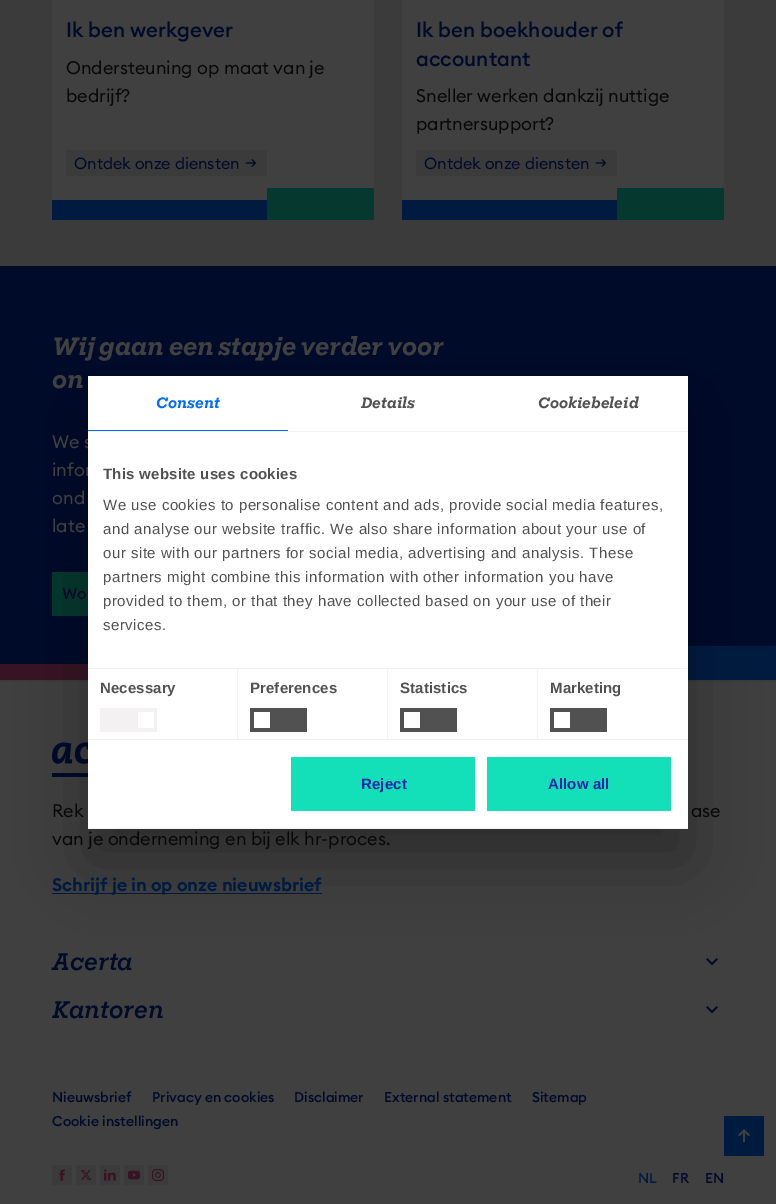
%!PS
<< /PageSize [776 1204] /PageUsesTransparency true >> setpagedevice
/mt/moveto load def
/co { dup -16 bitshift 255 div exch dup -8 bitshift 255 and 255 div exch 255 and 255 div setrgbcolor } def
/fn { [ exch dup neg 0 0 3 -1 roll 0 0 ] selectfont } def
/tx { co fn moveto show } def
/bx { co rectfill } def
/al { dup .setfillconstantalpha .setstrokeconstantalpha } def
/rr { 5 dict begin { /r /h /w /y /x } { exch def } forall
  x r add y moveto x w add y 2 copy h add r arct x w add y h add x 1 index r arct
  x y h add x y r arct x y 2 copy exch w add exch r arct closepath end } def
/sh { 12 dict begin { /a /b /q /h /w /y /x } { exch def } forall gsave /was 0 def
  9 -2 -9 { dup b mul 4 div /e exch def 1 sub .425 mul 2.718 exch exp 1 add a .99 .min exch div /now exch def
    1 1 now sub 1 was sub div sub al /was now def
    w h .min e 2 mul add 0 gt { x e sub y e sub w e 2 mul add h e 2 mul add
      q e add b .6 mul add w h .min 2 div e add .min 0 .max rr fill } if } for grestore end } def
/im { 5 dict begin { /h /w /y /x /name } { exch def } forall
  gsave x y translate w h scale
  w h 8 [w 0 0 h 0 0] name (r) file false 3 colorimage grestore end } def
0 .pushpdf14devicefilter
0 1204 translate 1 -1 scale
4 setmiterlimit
0 0 776 1204 16#404040 bx
0 0 776 266 16#3B3B3B bx
52 0 322 200 16#404040 bx
66 150 201 26 16#3B3B3B bx
(media/1.raw) 245 159 12 8 im
267 188 107 32 16#05382E bx
52 200 215 20 16#011B40 bx
402 0 322 200 16#404040 bx
416 150 201 26 16#3B3B3B bx
(media/1.raw) 595 159 12 8 im
617 188 107 32 16#05382E bx
402 200 215 20 16#011B40 bx
0 266 776 398 16#000A29 bx
688 646 88 34 16#011B40 bx
0 664 88 16 16#381323 bx
52 572 36 44 16#05382E bx
0 680 776 2 16#3B3B3B bx
(media/2.raw) 52 742 36 35 im
52 893 270 1 16#011B40 bx
(media/3.raw) 706 958 12 8 im
16#000000 co
88 408 600 453 0 34 .3 sh
88 828 600 1 16#F3F1F1 bx
(media/3.raw) 706 1006 12 8 im
52 1165 20 20 16#3B3B3B bx
(media/4.raw) 59 1169 6 12 im
76 1165 20 20 16#3B3B3B bx
(media/5.raw) 80 1170 12 10 im
100 1165 20 20 16#3B3B3B bx
(media/6.raw) 104 1169 12 12 im
124 1165 20 20 16#3B3B3B bx
(media/7.raw) 128 1170 12 10 im
148 1165 20 20 16#3B3B3B bx
(media/8.raw) 152 1169 12 12 im
724 1116 40 40 16#011B40 bx
(media/9.raw) 738 1129 12 13 im
(Ik ben werkgever) 66 37 /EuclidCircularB-Medium 20.6 16#000A29 tx
(Ondersteuning op maat van je) 66 74 /EuclidCircularB-Regular 18 16#080808 tx
(bedrijf?) 66 102 /EuclidCircularB-Regular 18 16#080808 tx
(Ontdek onze diensten) 74 169 /EuclidCircularB-Regular 16 16#000A29 tx
(Ik ben boekhouder of) 416 37 /EuclidCircularB-Medium 20.6 16#000A29 tx
(accountant) 416 66 /EuclidCircularB-Medium 20.6 16#000A29 tx
(Sneller werken dankzij nuttige) 416 102 /EuclidCircularB-Regular 18 16#080808 tx
(partnersupport?) 416 130 /EuclidCircularB-Regular 18 16#080808 tx
(Ontdek onze diensten) 424 169 /EuclidCircularB-Regular 16 16#000A29 tx
(Wij gaan een stapje verder voor) 52 355 /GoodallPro-SemiBold 24.9 16#404040 tx
(on) 52 388 /GoodallPro-SemiBold 24.9 16#404040 tx
(We s) 52 448 /EuclidCircularB-Regular 18 16#404040 tx
(infor) 52 476 /EuclidCircularB-Regular 18 16#404040 tx
(ond) 52 504 /EuclidCircularB-Regular 18 16#404040 tx
(late) 52 532 /EuclidCircularB-Regular 18 16#404040 tx
(Wo) 62 599 /EuclidCircularB-Medium 16 16#000A29 tx
88 376 600 452 16#FFFFFF bx
88 431 600 1 16#F3F1F1 bx
88 430 200 1 16#026CFF bx
/GoodallPro-SemiBold 15 fn
156 408 mt .1 0 (Consent) ashow
16#515151 co
361 408 mt .1 0 (Details) ashow
538 408 mt .1 0 (Cookiebeleid) ashow
88 668 600 1 16#F3F1F1 bx
/LiberationSans-Bold 15 fn
16#515151 co
103 479 mt .25 0 (This website uses cookies) ashow
/LiberationSans-Regular 15 fn
103 510 mt .5 0 (We use cookies to personalise content and ads, provide social media features,) ashow
103 534 mt .5 0 (and analyse our website traffic. We also share information about your use of) ashow
103 558 mt .5 0 (our site with our partners for social media, advertising and analysis. These) ashow
103 582 mt .5 0 (partners might combine this information with other information you have) ashow
103 606 mt .5 0 (provided to them, or that they have collected based on your use of their) ashow
103 630 mt .5 0 (services.) ashow
88 739 600 1 16#F3F1F1 bx
237 669 1 70 16#F3F1F1 bx
/LiberationSans-Bold 15 fn
16#515151 co
100 693 mt .1 0 (Necessary) ashow
100 708 57 24 16#F3F1F1 bx
138 712 16 16 16#FFFFFF bx
387 669 1 70 16#F3F1F1 bx
16#515151 co
250 693 mt .1 0 (Preferences) ashow
250 708 57 24 16#515151 bx
254 712 16 16 16#FFFFFF bx
537 669 1 70 16#F3F1F1 bx
16#515151 co
400 693 mt .1 0 (Statistics) ashow
400 708 57 24 16#515151 bx
404 712 16 16 16#FFFFFF bx
16#515151 co
550 693 mt .1 0 (Marketing) ashow
550 708 57 24 16#515151 bx
554 712 16 16 16#FFFFFF bx
291 757 184 54 16#13E0B9 bx
16#0026A5 co
361 789 mt .1 0 (Reject) ashow
487 757 184 54 16#13E0B9 bx
16#0026A5 co
548 789 mt .1 0 (Allow all) ashow
(Rek) 52 817 /EuclidCircularB-Regular 18 16#080808 tx
(ase) 691 817 /EuclidCircularB-Regular 18 16#080808 tx
(van je onderneming en bij elk hr-proces.) 52 845 /EuclidCircularB-Regular 18 16#080808 tx
(Schrijf je in op onze nieuwsbrief) 52 891 /EuclidCircularB-SemiBold 18 16#011B40 tx
(Acerta) 52 970 /GoodallPro-MediumItalic 24 16#000A29 tx
(Kantoren) 52 1018 /GoodallPro-MediumItalic 24 16#000A29 tx
(Nieuwsbrief) 52 1102 /EuclidCircularB-Medium 14 16#000A29 tx
(Privacy en cookies) 152 1102 /EuclidCircularB-Medium 14 16#000A29 tx
(Disclaimer) 294 1102 /EuclidCircularB-Medium 14 16#000A29 tx
(External statement) 384 1102 /EuclidCircularB-Medium 14 16#000A29 tx
(Sitemap) 532 1102 /EuclidCircularB-Medium 14 16#000A29 tx
(Cookie instellingen) 52 1126 /EuclidCircularB-Medium 14 16#000A29 tx
(NL) 638 1183 /EuclidCircularB-Medium 14 16#011B40 tx
(FR) 672 1183 /EuclidCircularB-Medium 14 16#000A29 tx
(EN) 705 1183 /EuclidCircularB-Medium 14 16#000A29 tx
.poppdf14devicefilter showpage
